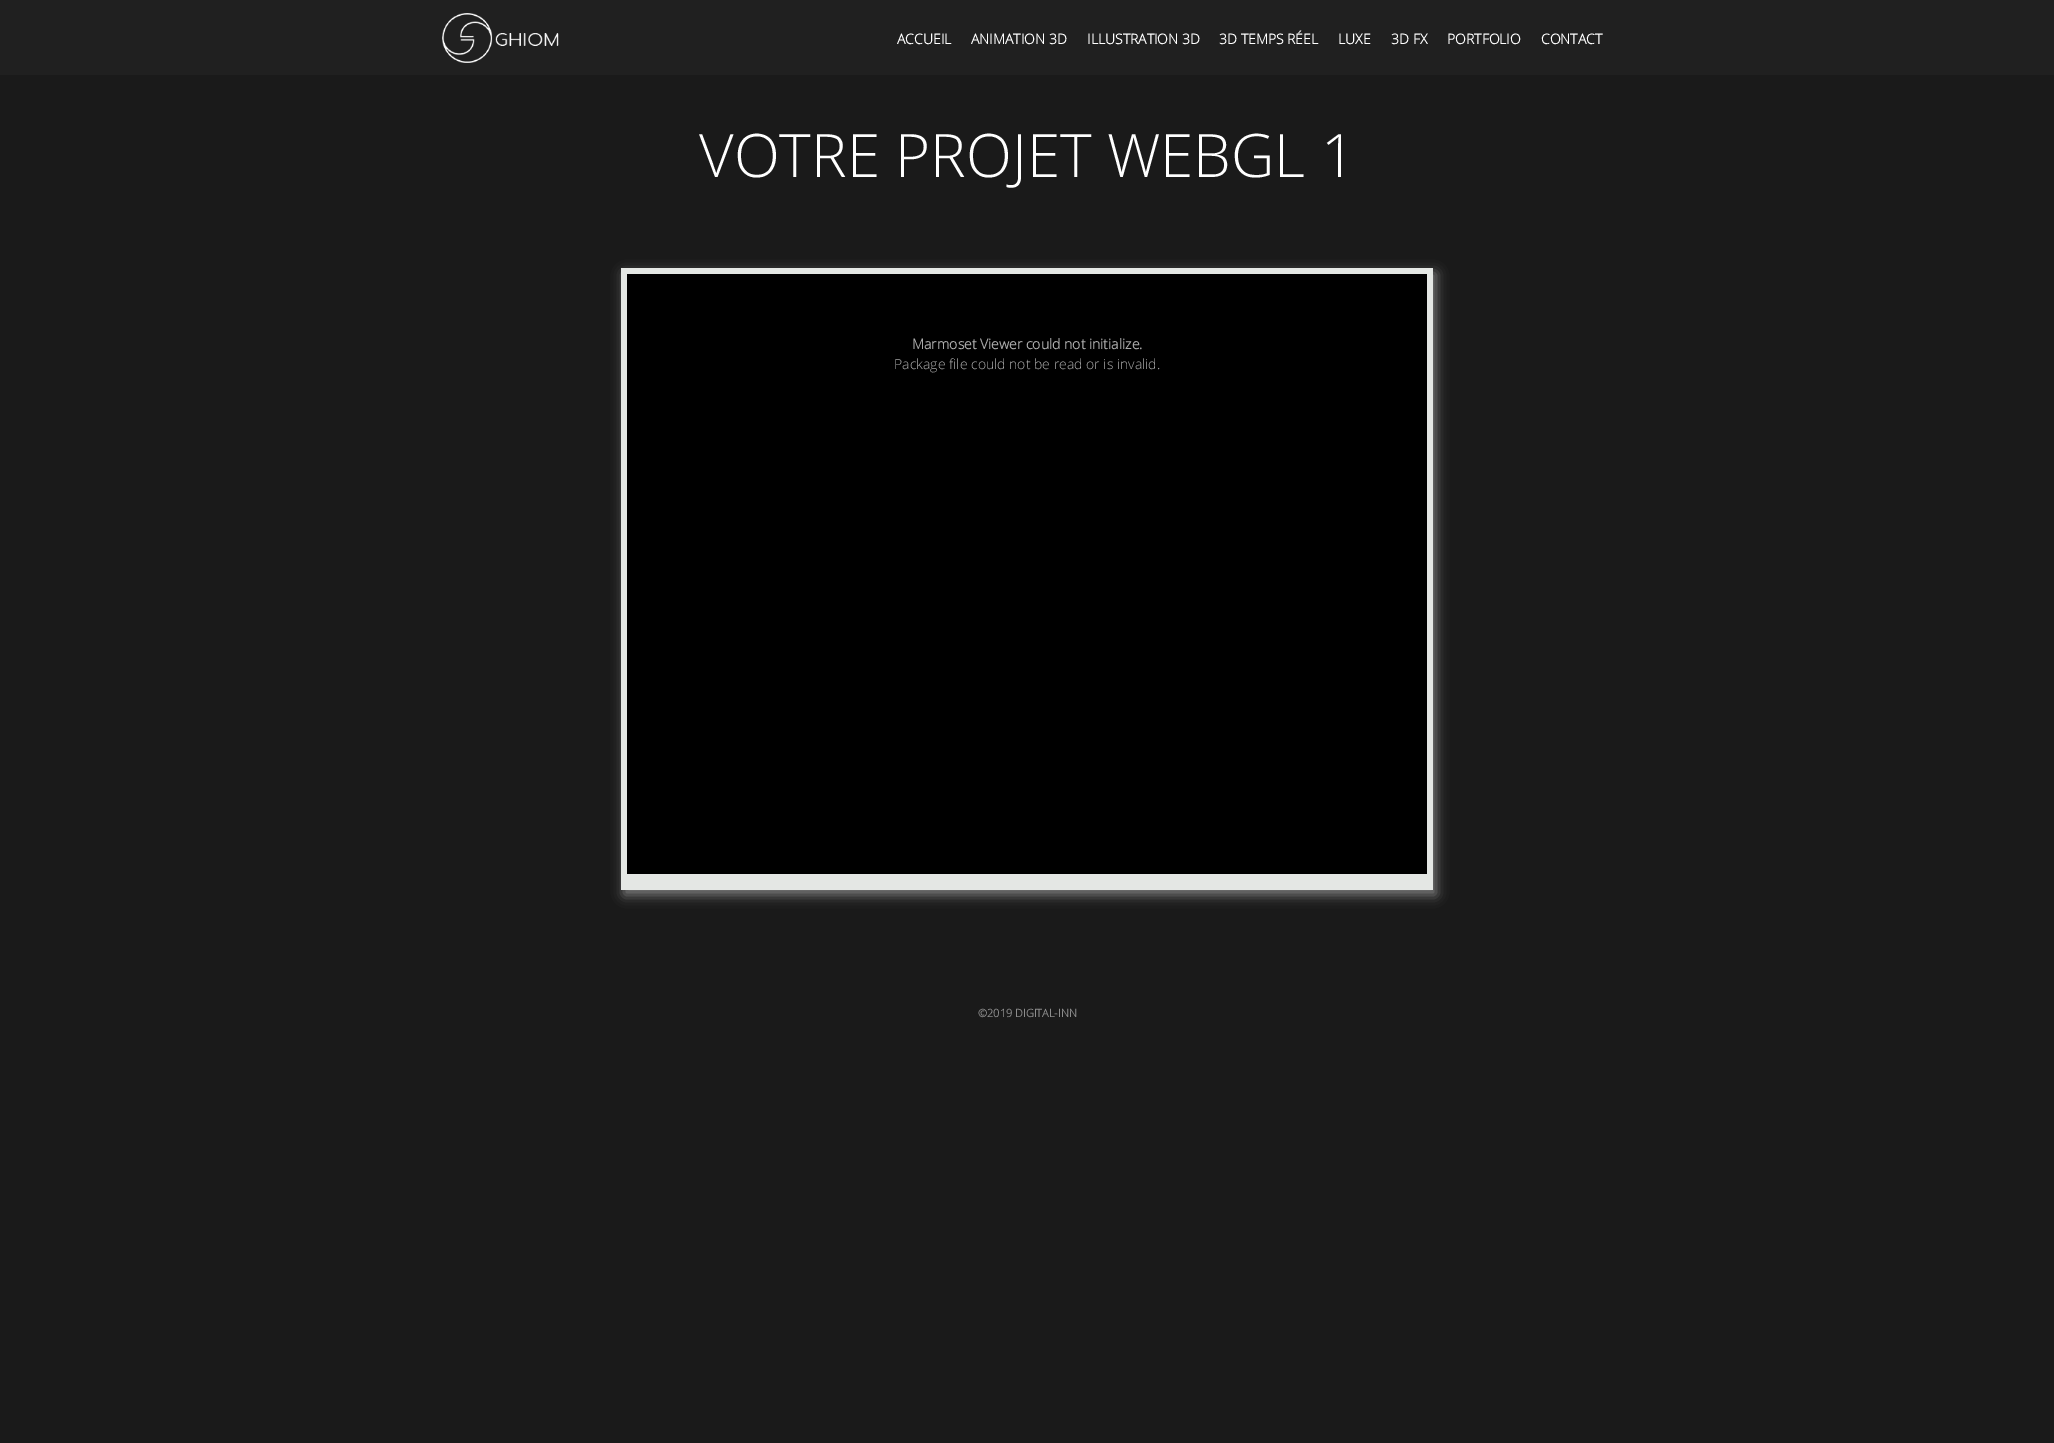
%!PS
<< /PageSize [2054 1443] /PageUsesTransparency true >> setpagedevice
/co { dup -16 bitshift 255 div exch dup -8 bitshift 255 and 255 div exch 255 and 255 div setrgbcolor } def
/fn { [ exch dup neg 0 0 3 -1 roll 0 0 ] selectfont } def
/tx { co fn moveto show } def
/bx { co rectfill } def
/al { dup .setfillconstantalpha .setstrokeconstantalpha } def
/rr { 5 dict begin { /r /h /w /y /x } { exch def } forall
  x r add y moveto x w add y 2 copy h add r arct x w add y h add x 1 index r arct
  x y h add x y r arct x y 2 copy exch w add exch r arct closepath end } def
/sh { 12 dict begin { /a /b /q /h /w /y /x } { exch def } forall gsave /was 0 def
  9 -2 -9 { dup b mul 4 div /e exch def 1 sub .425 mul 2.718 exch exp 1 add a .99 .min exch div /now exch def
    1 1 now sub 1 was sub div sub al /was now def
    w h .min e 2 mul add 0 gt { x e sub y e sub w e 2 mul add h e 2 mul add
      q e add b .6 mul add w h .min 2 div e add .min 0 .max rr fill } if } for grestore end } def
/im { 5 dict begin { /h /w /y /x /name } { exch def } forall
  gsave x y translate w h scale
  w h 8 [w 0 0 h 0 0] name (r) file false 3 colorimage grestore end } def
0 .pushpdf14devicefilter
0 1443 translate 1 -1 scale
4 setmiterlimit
0 0 2054 1443 16#1A1A1A bx
0 0 2054 75 16#202020 bx
(media/1.raw) 442 13 117 50 im
16#808080 co
624 273 812 622 0 6 1 sh
621 268 812 622 16#E4E7E4 bx
627 274 800 600 16#000000 bx
(ACCUEIL) 897 44 /OpenSans-Bold 14 16#FFFFFF tx
(ANIMATION 3D) 971 44 /OpenSans-Bold 14 16#FFFFFF tx
(ILLUSTRATION 3D) 1087 44 /OpenSans-Bold 14 16#FFFFFF tx
(3D TEMPS RÉEL) 1219 44 /OpenSans-Bold 14 16#FFFFFF tx
(LUXE) 1338 44 /OpenSans-Bold 14 16#FFFFFF tx
(3D FX) 1391 44 /OpenSans-Bold 14 16#FFFFFF tx
(PORTFOLIO) 1447 44 /OpenSans-Bold 14 16#FFFFFF tx
(CONTACT) 1541 44 /OpenSans-Bold 14 16#FFFFFF tx
(VOTRE PROJET WEBGL 1) 699 177 /OpenSans-Light 60 16#FFFFFF tx
(Marmoset Viewer could not initialize.) 912 349 /OpenSans-Bold 14 16#AAAAAA tx
(Package file could not be read or is invalid.) 894 369 /OpenSans-Light 14 16#AAAAAA tx
(©2019 DIGITAL-INN) 978 1017 /OpenSans-Bold 11 16#8D8D8D tx
.poppdf14devicefilter showpage
